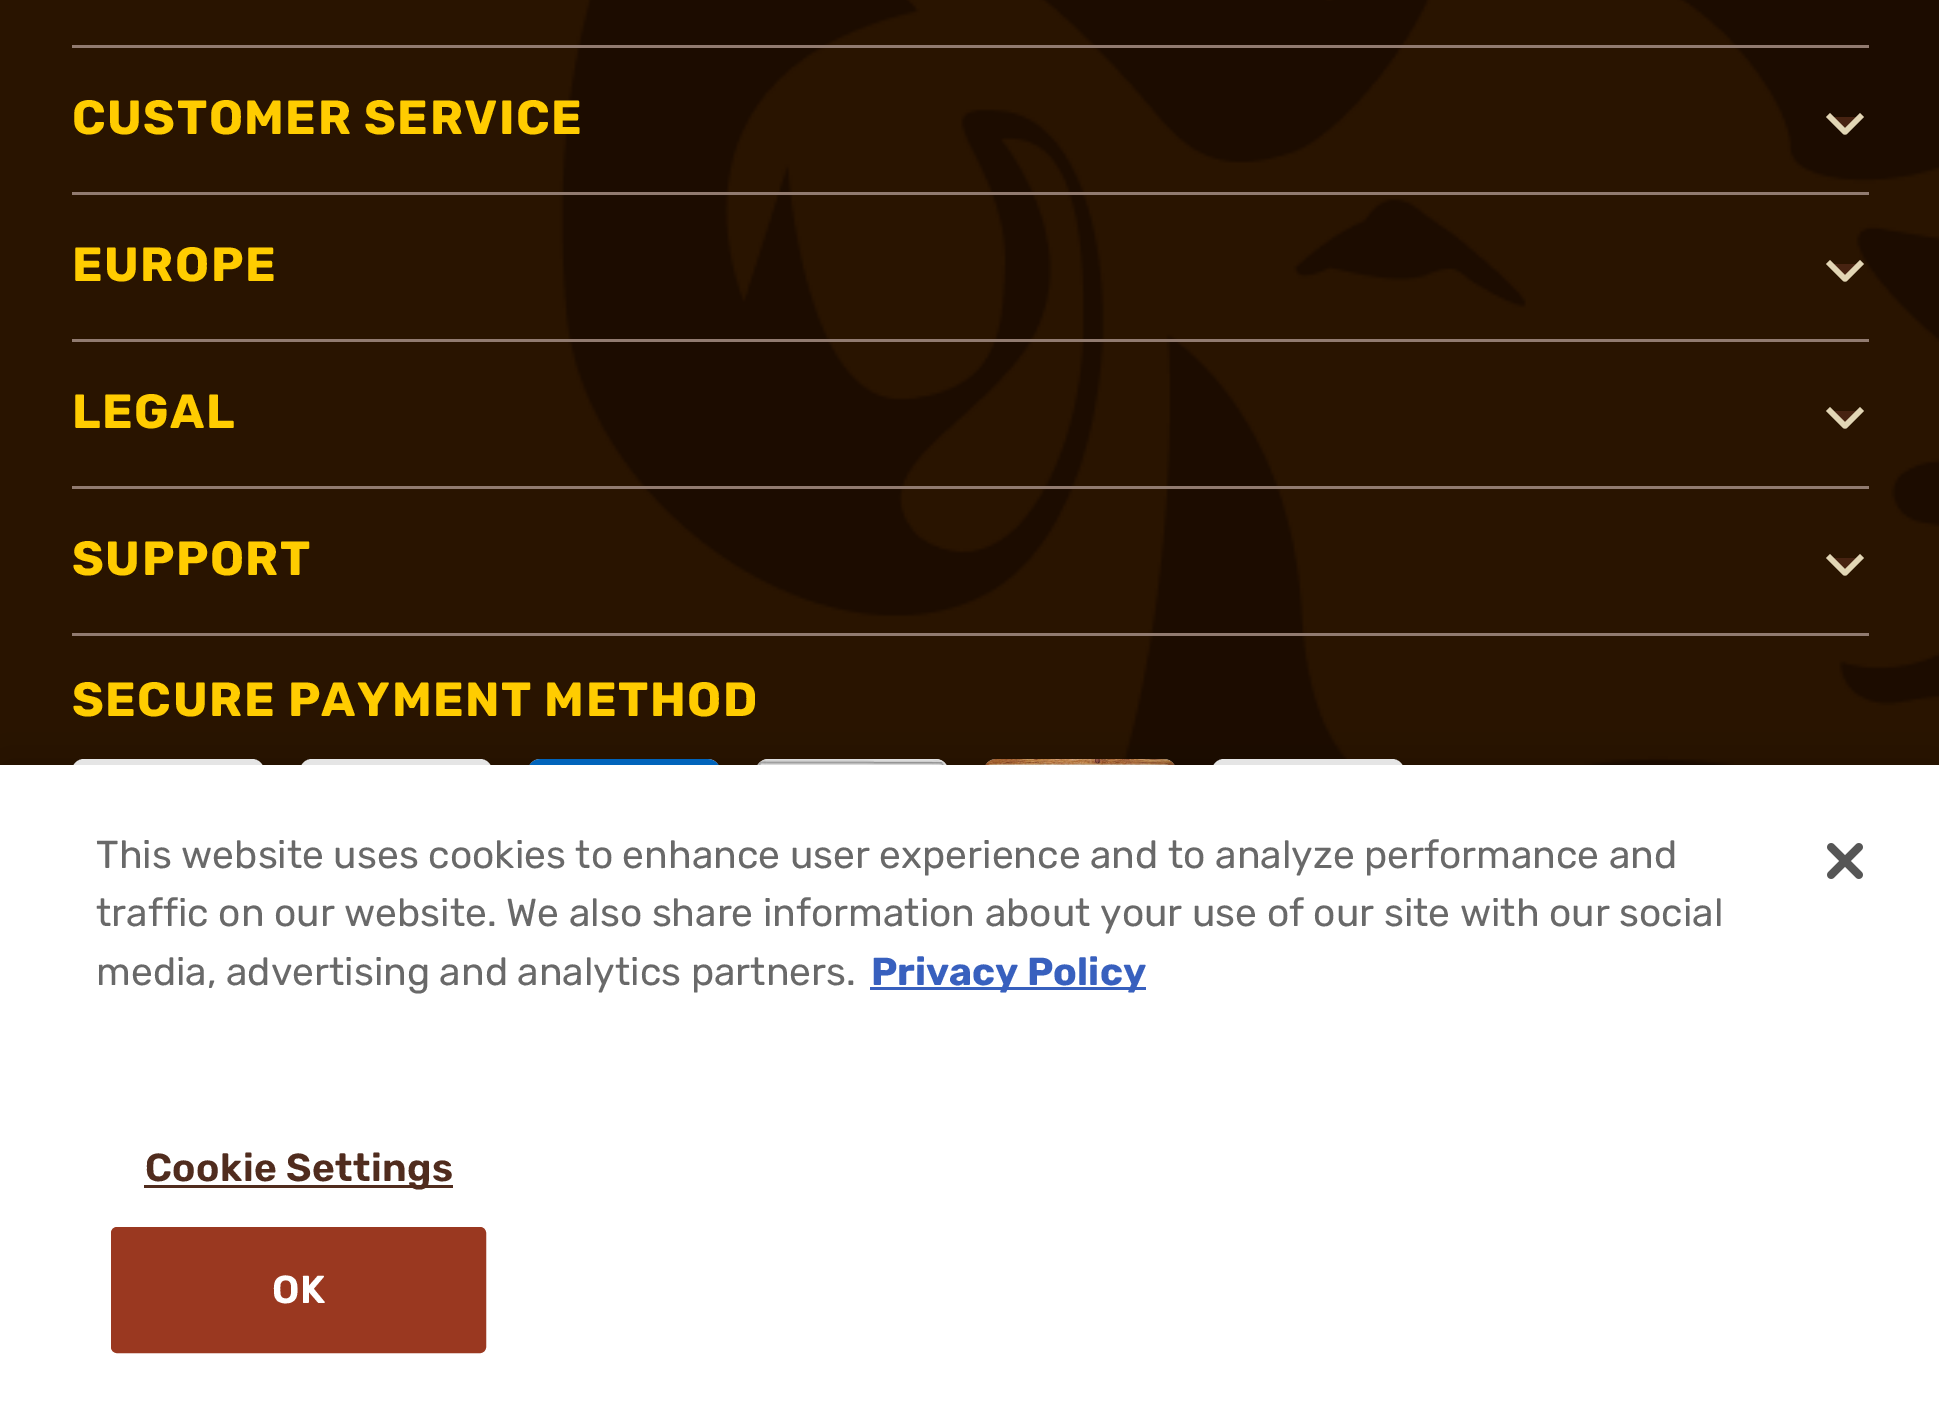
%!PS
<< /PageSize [1939 1401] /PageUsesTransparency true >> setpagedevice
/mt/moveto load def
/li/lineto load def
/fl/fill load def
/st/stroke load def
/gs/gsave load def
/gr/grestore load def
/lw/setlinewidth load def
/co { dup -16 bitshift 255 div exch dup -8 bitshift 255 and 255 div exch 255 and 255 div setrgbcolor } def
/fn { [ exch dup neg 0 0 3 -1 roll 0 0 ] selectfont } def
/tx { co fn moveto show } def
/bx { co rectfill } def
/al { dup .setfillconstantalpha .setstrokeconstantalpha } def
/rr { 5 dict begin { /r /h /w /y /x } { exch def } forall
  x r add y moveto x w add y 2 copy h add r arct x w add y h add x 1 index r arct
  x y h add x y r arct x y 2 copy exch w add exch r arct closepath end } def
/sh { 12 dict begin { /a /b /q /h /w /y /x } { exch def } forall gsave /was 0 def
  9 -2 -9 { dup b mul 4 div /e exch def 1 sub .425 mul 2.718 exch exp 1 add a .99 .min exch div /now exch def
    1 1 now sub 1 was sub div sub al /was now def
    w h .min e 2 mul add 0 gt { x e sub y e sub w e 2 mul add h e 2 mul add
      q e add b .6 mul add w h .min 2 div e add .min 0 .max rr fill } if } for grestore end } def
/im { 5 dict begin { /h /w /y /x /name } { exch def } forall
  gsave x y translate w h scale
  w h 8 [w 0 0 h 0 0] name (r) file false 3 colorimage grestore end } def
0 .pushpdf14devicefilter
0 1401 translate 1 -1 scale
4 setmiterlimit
0 0 1939 1401 16#FFFFFF bx
(media/1.raw) 0 0 1939 765 im
72 45 1797 3 16#917B70 bx
72 192 1797 3 16#917B70 bx
16#472311 co
1830 117 mt 1845 132 li 1860 117 li gs fl gr
16#E2D6B5 co
5.4 lw
2 setlinecap
1 setlinejoin
st
72 339 1797 3 16#917B70 bx
16#472311 co
1830 264 mt 1845 279 li 1860 264 li gs fl gr
16#E2D6B5 co
st
72 486 1797 3 16#917B70 bx
16#472311 co
1830 411 mt 1845 426 li 1860 411 li gs fl gr
16#E2D6B5 co
st
72 633 1797 3 16#917B70 bx
16#472311 co
1830 558 mt 1845 573 li 1860 558 li gs fl gr
16#E2D6B5 co
st
16#FFFFFF co
72 759 192 120 12 rr fl
300 759 192 120 12 rr fl
(media/2.raw) 529 759 190 6 im
756 759 192 120 12 rr fl
(media/3.raw) 757 759 190 6 im
(media/4.raw) 985 759 190 6 im
1212 759 192 120 12 rr fl
16#000000 co
0 765 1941 636 0 27 .2 sh
0 765 1939 636 16#FFFFFF bx
870 987 276 3 16#3860BE bx
144 1185 309 3 16#502C1E bx
16#9A3820 co
112.5 1228.5 372 123 4.5 rr gs fl gr
3 lw
0 setlinecap
0 setlinejoin
st
(media/5.raw) 1827 843 36 36 im
/Rubik-Bold 48 fn
16#FFCC00 co
72 134 mt 1.5 0 (CUSTOMER SERVICE) ashow
72 281 mt 1.5 0 (EUROPE) ashow
72 428 mt 1.5 0 (LEGAL) ashow
72 575 mt 1.5 0 (SUPPORT) ashow
72 716 mt 1.5 0 (SECURE PAYMENT METHOD) ashow
(This website uses cookies to enhance user experience and to analyze performance and) 96 868 /Rubik-Regular 39 16#696969 tx
(traffic on our website. We also share information about your use of our site with our social) 96 926 /Rubik-Regular 39 16#696969 tx
(media, advertising and analytics partners.) 96 985 /Rubik-Regular 39 16#696969 tx
(Privacy Policy) 871 985 /Rubik-Bold 39 16#3860BE tx
/Rubik-SemiBold 39 fn
16#502C1E co
145 1181 mt .4 0 (Cookie Settings) ashow
16#FFFFFF co
272 1303 mt .4 0 (OK) ashow
.poppdf14devicefilter showpage
